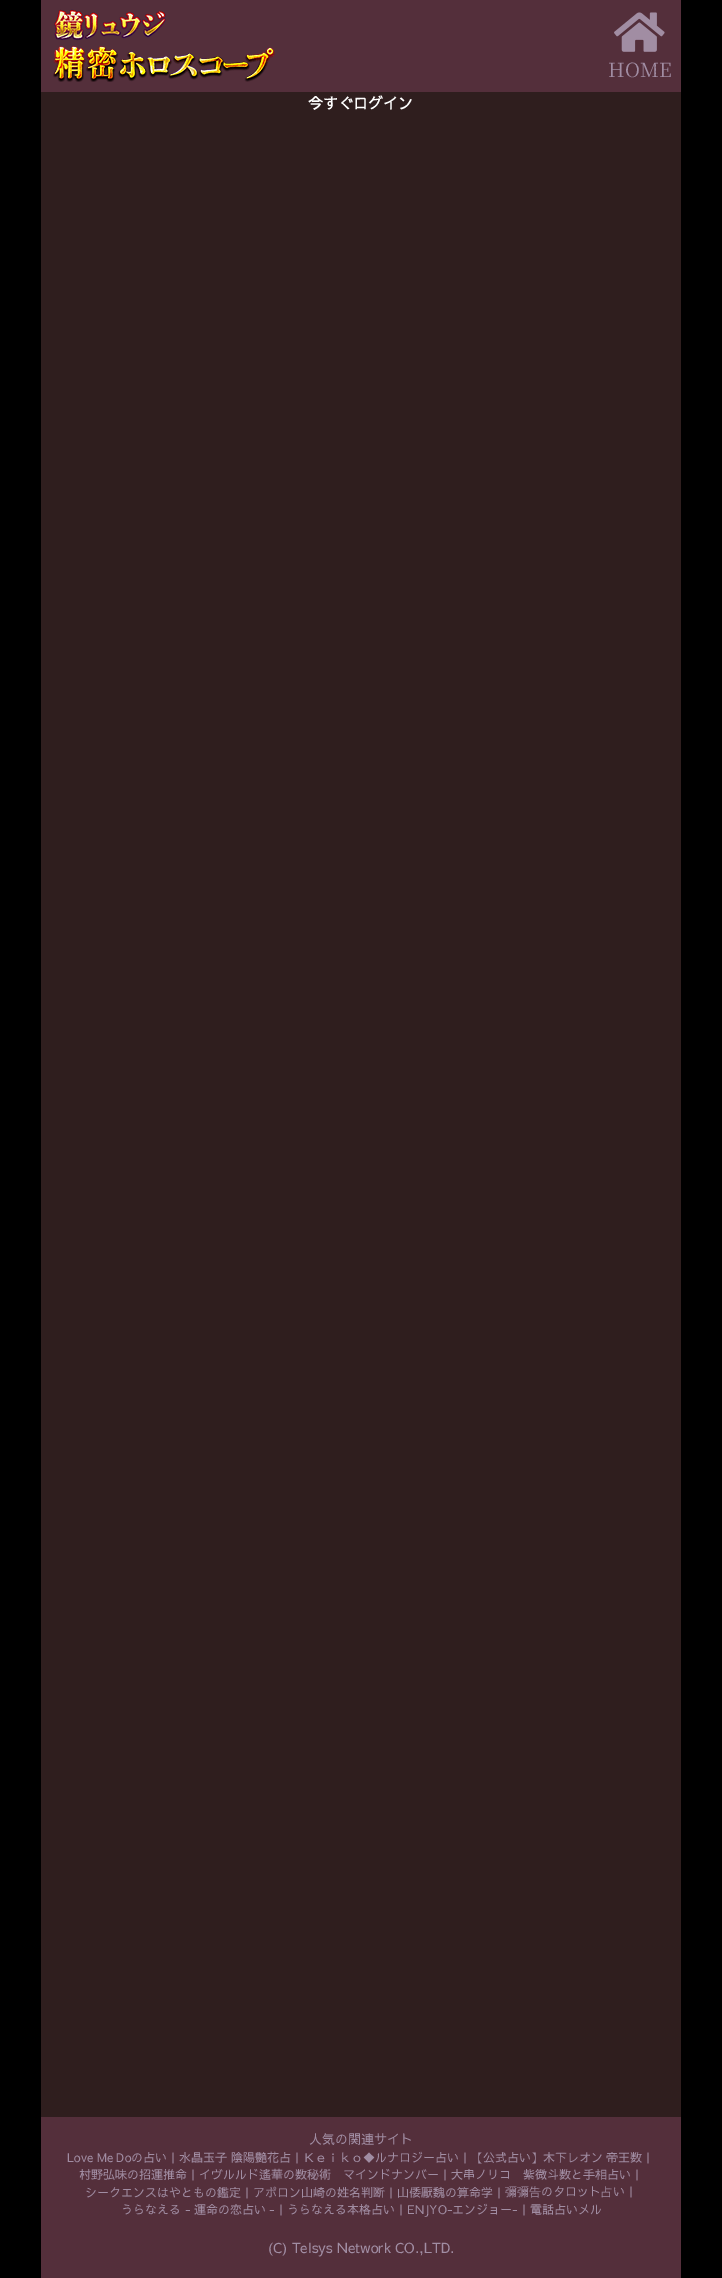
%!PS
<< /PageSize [722 2278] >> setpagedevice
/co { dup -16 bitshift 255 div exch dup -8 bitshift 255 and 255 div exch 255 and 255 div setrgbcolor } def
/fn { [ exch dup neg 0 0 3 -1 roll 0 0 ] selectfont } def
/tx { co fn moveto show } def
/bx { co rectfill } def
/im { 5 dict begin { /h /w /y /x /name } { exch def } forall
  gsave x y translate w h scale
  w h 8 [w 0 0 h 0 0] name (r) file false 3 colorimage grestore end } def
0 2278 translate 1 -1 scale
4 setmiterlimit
0 0 722 2278 16#000000 bx
41 92 640 2025 16#2F1E1E bx
41 0 640 92 16#542F3B bx
(media/1.raw) 53 9 222 73 im
(media/2.raw) 614 12 51 40 im
41 2117 640 161 16#542F3B bx
(HOME) 608 77 /NotoSerifJP-ExtraLight 19.5 16#A18DA3 tx
(今すぐログイン) 308 109 /SawarabiGothic-Bold 15 16#FFFFFF tx
(人気の関連サイト) 309 2144 /SawarabiGothic-Regular 13 16#A18DA3 tx
(Love Me Doの占い｜水晶玉子 陰陽艶花占｜Ｋｅｉｋｏ◆ルナロジー占い｜【公式占い】木下レオン 帝王数｜) 67 2162 /SawarabiGothic-Regular 12 16#A18DA3 tx
(村野弘味の招運推命｜イヴルルド遙華の数秘術　マインドナンバー｜大串ノリコ　紫微斗数と手相占い｜) 79 2179 /SawarabiGothic-Regular 12 16#A18DA3 tx
(シークエンスはやともの鑑定｜アポロン山崎の姓名判断｜山倭厭魏の算命学｜) 85 2197 /SawarabiGothic-Regular 12 16#A18DA3 tx
(彌彌告) 505 2196 /WenQuanYiZenHei-Medium 12 16#A18DA3 tx
(のタロット) 541 2196 /SawarabiGothic-Regular 12 16#A18DA3 tx
(占) 601 2196 /WenQuanYiZenHei-Medium 12 16#A18DA3 tx
(い｜) 613 2196 /SawarabiGothic-Regular 12 16#A18DA3 tx
(うらなえる - 運命の恋占い -｜うらなえる本格占い｜ENJYO-エンジョー-｜電話占いメル) 121 2214 /SawarabiGothic-Regular 12 16#A18DA3 tx
(\(C\) Telsys Network CO.,LTD.) 268 2253 /SawarabiGothic-Regular 14 16#A18DA3 tx
showpage
